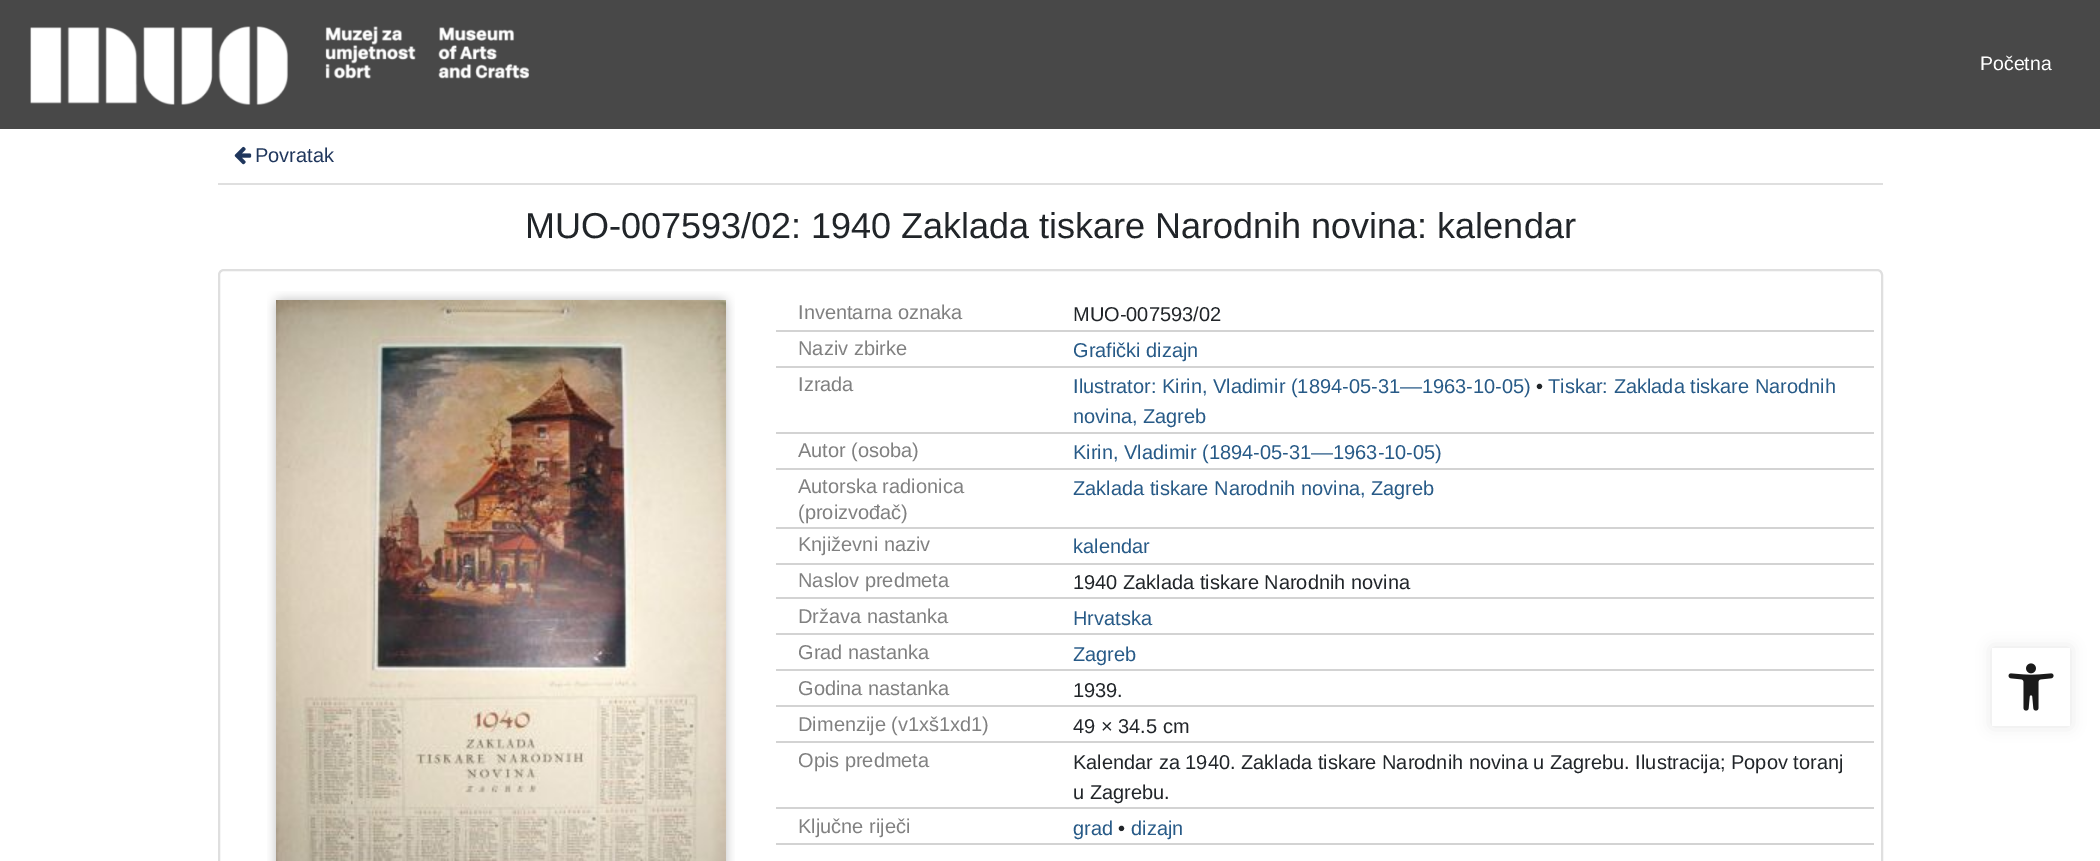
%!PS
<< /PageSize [2100 861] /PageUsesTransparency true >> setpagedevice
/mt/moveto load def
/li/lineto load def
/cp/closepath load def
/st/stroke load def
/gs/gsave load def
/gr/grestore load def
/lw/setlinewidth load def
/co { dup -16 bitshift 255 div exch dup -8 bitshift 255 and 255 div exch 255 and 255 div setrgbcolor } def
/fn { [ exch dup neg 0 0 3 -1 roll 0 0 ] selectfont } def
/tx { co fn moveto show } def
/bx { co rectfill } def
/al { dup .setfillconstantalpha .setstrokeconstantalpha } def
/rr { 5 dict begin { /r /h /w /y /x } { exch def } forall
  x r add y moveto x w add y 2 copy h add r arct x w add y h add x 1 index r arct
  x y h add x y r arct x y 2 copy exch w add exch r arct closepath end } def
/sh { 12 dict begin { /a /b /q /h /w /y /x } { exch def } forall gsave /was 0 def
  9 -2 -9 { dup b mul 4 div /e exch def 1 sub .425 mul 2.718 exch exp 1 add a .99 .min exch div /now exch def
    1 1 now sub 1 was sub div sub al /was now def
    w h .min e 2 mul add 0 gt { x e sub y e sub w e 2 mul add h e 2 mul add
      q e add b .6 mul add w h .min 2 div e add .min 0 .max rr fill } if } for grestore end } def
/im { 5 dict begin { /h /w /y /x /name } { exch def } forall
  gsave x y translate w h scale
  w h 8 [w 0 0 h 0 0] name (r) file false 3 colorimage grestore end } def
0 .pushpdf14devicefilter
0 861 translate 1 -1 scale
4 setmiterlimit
0 0 2100 861 16#FFFFFF bx
0 0 2100 129 16#484848 bx
(media/1.raw) 30 26 500 79 im
218 183 1665 2 16#DFDFDF bx
(media/2.raw) 234 146 18 19 im
2 lw
219 270 1663 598 5 rr st
(media/3.raw) 267 291 468 570 im
776 330 1098 2 16#D3D3D3 bx
776 366 1098 2 16#D3D3D3 bx
776 432 1098 2 16#D3D3D3 bx
776 468 1098 2 16#D3D3D3 bx
776 527 1098 2 16#D3D3D3 bx
776 563 1098 2 16#D3D3D3 bx
776 597 1098 2 16#D3D3D3 bx
776 633 1098 2 16#D3D3D3 bx
776 669 1098 2 16#D3D3D3 bx
776 705 1098 2 16#D3D3D3 bx
776 741 1098 2 16#D3D3D3 bx
776 807 1098 2 16#D3D3D3 bx
776 843 1098 2 16#D3D3D3 bx
gs
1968 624 mt 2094 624 li 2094 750 li 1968 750 li cp 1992 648 mt 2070 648 li 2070 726 li 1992 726 li cp eoclip newpath
16#000000 co
1992 648 78 78 0 7.5 .1 sh
gr
(media/4.raw) 2008 663 46 48 im
(Početna) 1980 70 /LiberationSans-Regular 19.5 16#FFFFFF tx
(Povratak) 255 162 /LiberationSans-Regular 20 16#1F365C tx
(MUO-007593/02: 1940 Zaklada tiskare Narodnih novina: kalendar) 525 238 /LiberationSans-Regular 36 16#212529 tx
(Inventarna oznaka) 798 319 /LiberationSans-Regular 20 16#808080 tx
(MUO-007593/02) 1073 321 /LiberationSans-Regular 20 16#212529 tx
(Naziv zbirke) 798 355 /LiberationSans-Regular 20 16#808080 tx
(Grafički dizajn) 1073 357 /LiberationSans-Regular 20 16#275A87 tx
(Izrada) 798 391 /LiberationSans-Regular 20 16#808080 tx
(Ilustrator: Kirin, Vladimir \(1894-05-31––1963-10-05\)) 1073 393 /LiberationSans-Regular 20 16#275A87 tx
(•) 1536 393 /LiberationSans-Regular 20 16#212529 tx
(Tiskar: Zaklada tiskare Narodnih) 1548 393 /LiberationSans-Regular 20 16#275A87 tx
(novina, Zagreb) 1073 423 /LiberationSans-Regular 20 16#275A87 tx
(Autor \(osoba\)) 798 457 /LiberationSans-Regular 20 16#808080 tx
(Kirin, Vladimir \(1894-05-31––1963-10-05\)) 1073 459 /LiberationSans-Regular 20 16#275A87 tx
(Autorska radionica) 798 493 /LiberationSans-Regular 20 16#808080 tx
(\(proizvođač\)) 798 519 /LiberationSans-Regular 20 16#808080 tx
(Zaklada tiskare Narodnih novina, Zagreb) 1073 495 /LiberationSans-Regular 20 16#275A87 tx
(Književni naziv) 798 551 /LiberationSans-Regular 20 16#808080 tx
(kalendar) 1073 553 /LiberationSans-Regular 20 16#275A87 tx
(Naslov predmeta) 798 587 /LiberationSans-Regular 20 16#808080 tx
(1940 Zaklada tiskare Narodnih novina) 1073 589 /LiberationSans-Regular 20 16#212529 tx
(Država nastanka) 798 623 /LiberationSans-Regular 20 16#808080 tx
(Hrvatska) 1073 625 /LiberationSans-Regular 20 16#275A87 tx
(Grad nastanka) 798 659 /LiberationSans-Regular 20 16#808080 tx
(Zagreb) 1073 661 /LiberationSans-Regular 20 16#275A87 tx
(Godina nastanka) 798 695 /LiberationSans-Regular 20 16#808080 tx
(1939.) 1073 697 /LiberationSans-Regular 20 16#212529 tx
(Dimenzije \(v1xš1xd1\)) 798 731 /LiberationSans-Regular 20 16#808080 tx
(49 × 34.5 cm) 1073 733 /LiberationSans-Regular 20 16#212529 tx
(Opis predmeta) 798 767 /LiberationSans-Regular 20 16#808080 tx
(Kalendar za 1940. Zaklada tiskare Narodnih novina u Zagrebu. Ilustracija; Popov toranj) 1073 769 /LiberationSans-Regular 20 16#212529 tx
(u Zagrebu.) 1073 799 /LiberationSans-Regular 20 16#212529 tx
(Ključne riječi) 798 833 /LiberationSans-Regular 20 16#808080 tx
(grad) 1073 835 /LiberationSans-Regular 20 16#275A87 tx
(•) 1118 835 /LiberationSans-Regular 20 16#212529 tx
(dizajn) 1131 835 /LiberationSans-Regular 20 16#275A87 tx
.poppdf14devicefilter showpage
